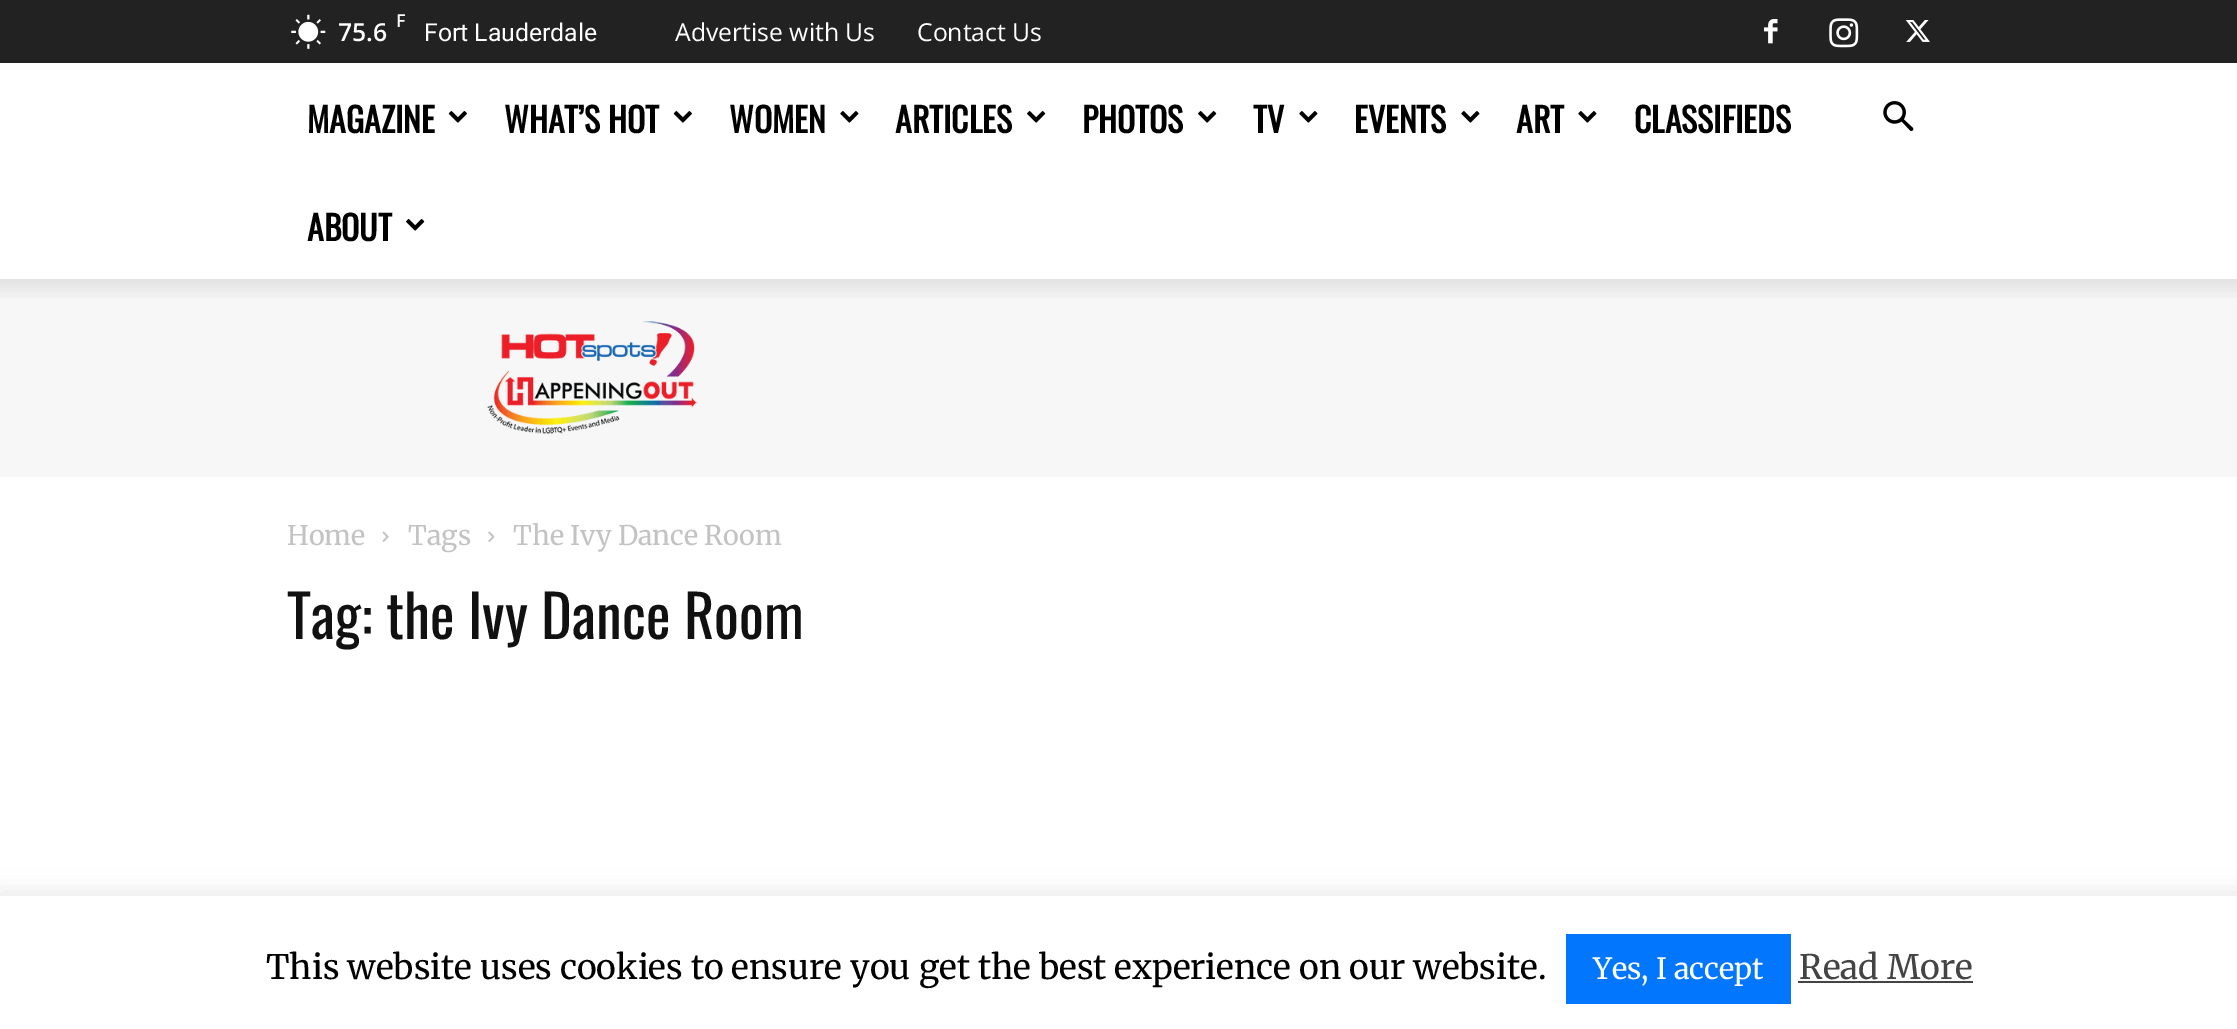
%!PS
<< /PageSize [2237 1029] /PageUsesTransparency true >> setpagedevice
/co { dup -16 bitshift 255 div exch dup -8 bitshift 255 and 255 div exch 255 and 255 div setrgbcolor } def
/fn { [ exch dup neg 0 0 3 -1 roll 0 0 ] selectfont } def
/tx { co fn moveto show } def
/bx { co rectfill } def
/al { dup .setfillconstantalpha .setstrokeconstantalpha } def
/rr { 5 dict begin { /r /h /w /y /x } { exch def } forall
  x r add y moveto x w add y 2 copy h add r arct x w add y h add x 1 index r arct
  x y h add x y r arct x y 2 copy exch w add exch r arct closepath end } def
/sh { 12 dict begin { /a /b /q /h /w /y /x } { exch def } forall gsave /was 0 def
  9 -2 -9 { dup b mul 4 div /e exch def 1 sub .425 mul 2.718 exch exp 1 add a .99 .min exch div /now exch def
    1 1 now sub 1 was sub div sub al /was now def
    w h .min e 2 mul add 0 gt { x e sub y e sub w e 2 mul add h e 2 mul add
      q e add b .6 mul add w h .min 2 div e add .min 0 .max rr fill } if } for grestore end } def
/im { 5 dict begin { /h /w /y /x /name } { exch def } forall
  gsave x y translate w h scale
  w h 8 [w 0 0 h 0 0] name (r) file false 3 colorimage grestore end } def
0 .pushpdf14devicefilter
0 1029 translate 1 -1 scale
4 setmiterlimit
0 0 2237 1029 16#FFFFFF bx
0 0 2237 63 16#222222 bx
(media/1.raw) 291 14 35 35 im
(media/2.raw) 1764 19 14 25 im
(media/3.raw) 1829 18 30 30 im
(media/4.raw) 1905 20 25 22 im
(media/5.raw) 448 111 19 12 im
(media/5.raw) 673 111 19 12 im
(media/6.raw) 840 111 19 12 im
(media/7.raw) 1027 111 19 12 im
(media/7.raw) 1198 111 19 12 im
(media/6.raw) 1299 111 19 12 im
(media/6.raw) 1461 111 19 12 im
(media/6.raw) 1578 111 19 12 im
(media/7.raw) 406 219 19 12 im
(media/8.raw) 1883 101 31 30 im
0 279 2237 198 16#F7F7F7 bx
(media/9.raw) 0 279 2237 19 im
(media/10.raw) 487 321 210 113 im
(media/11.raw) 382 531 7 11 im
(media/12.raw) 488 531 7 11 im
16#ACABAB co
0 893 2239 135 0 11 .3 sh
0 896 2237 133 16#FFFFFF bx
1566 934 225 70 16#0376FE bx
1798 981 175 2 16#444444 bx
(F) 396 27 /OpenSans-SemiBold 18 16#FFFFFF tx
(75.6) 338 41 /OpenSans-SemiBold 24.75 16#FFFFFF tx
(Fort Lauderdale) 424 41 /Roboto-Regular 24.75 16#FFFFFF tx
(Advertise with Us) 675 41 /OpenSans-Regular 24.75 16#FFFFFF tx
(Contact Us) 917 41 /OpenSans-Regular 24.75 16#FFFFFF tx
(MAGAZINE) 307 133 /Oswald-Bold 33.75 16#000000 tx
(WHAT’S HOT) 504 133 /Oswald-Bold 33.75 16#000000 tx
(WOMEN) 729 133 /Oswald-Bold 33.75 16#000000 tx
(ARTICLES) 895 133 /Oswald-Bold 33.75 16#000000 tx
(PHOTOS) 1082 133 /Oswald-Bold 33.75 16#000000 tx
(TV) 1253 133 /Oswald-Bold 33.75 16#000000 tx
(EVENTS) 1354 133 /Oswald-Bold 33.75 16#000000 tx
(ART) 1516 133 /Oswald-Bold 33.75 16#000000 tx
(CLASSIFIEDS) 1634 133 /Oswald-Bold 33.75 16#000000 tx
(ABOUT) 307 241 /Oswald-Bold 33.75 16#000000 tx
(Home) 287 545 /Merriweather-Light 27 16#C3C3C3 tx
(Tags) 408 545 /Merriweather-Light 27 16#C3C3C3 tx
(The Ivy Dance Room) 513 545 /Merriweather-Light 27 16#C3C3C3 tx
(Tag: the Ivy Dance Room) 287 639 /Oswald-Regular 58.5 16#111111 tx
(This website uses cookies to ensure you get the best experience on our website.) 266 979 /Merriweather-Light 33.75 16#000000 tx
(Yes, I accept) 1593 979 /Merriweather-Light 29.25 16#FFFFFF tx
(Read More) 1799 979 /Merriweather-Light 33.75 16#444444 tx
.poppdf14devicefilter showpage
